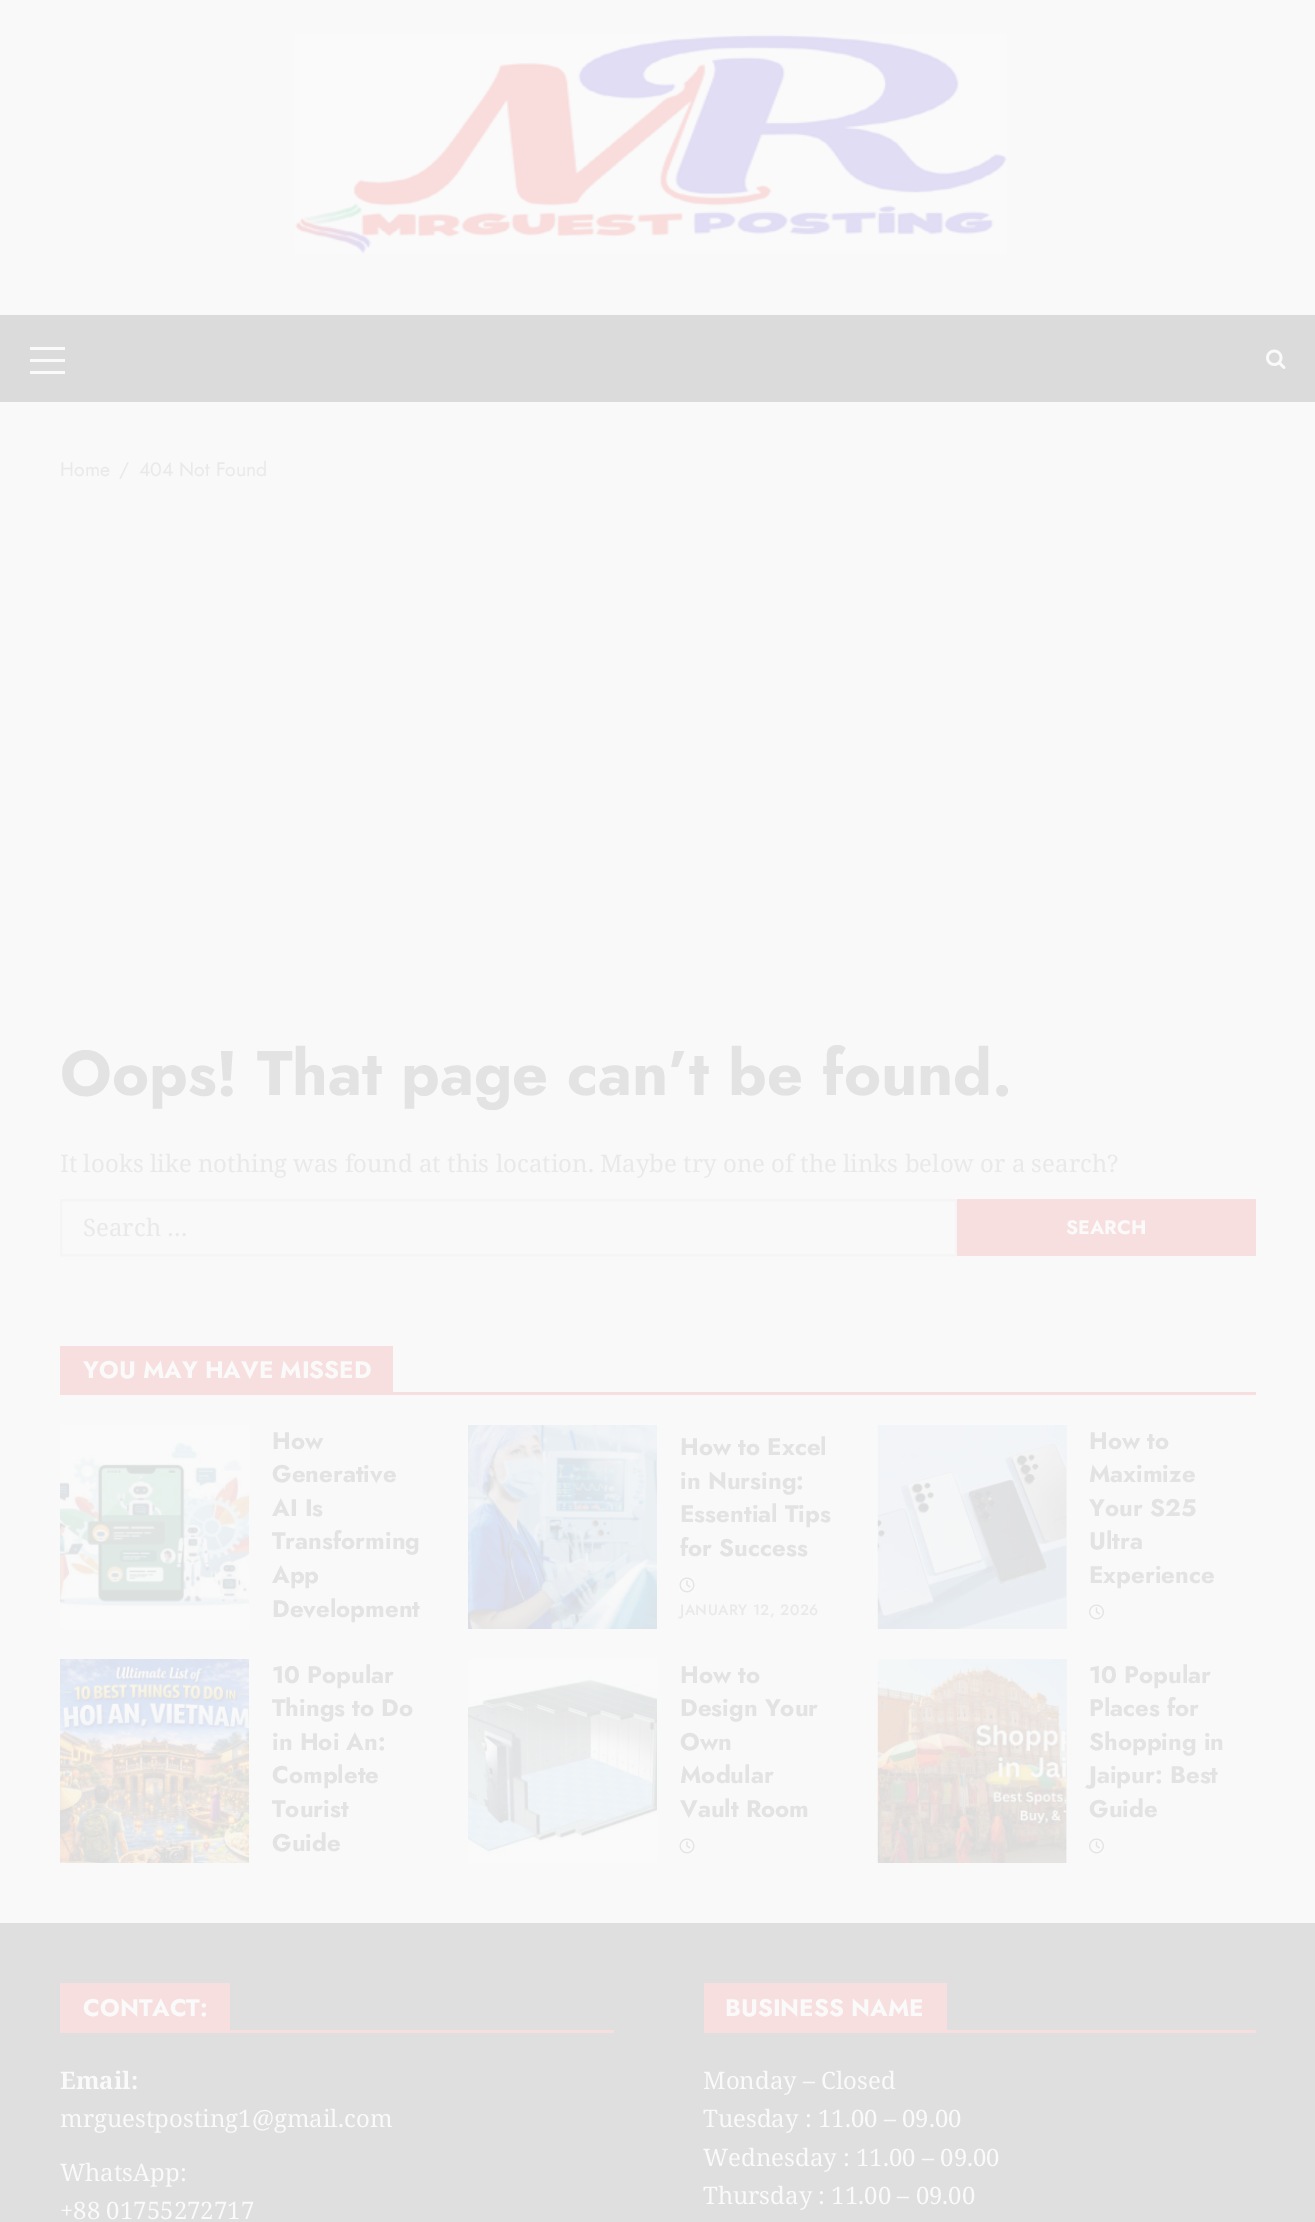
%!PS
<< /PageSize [1315 2222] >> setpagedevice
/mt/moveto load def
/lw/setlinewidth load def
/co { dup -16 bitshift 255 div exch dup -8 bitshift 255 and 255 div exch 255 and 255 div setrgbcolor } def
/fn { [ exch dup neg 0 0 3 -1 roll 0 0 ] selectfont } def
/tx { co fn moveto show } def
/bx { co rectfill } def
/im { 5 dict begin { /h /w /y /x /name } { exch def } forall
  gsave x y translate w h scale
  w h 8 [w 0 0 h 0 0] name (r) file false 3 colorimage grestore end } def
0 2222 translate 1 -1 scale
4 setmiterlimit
0 0 1315 2222 16#F9F9F9 bx
(media/1.raw) 295 34 712 220 im
0 315 1315 87 16#DBDBDB bx
30 359 35 3 16#FAFAFA bx
30 347 35 3 16#FAFAFA bx
30 371 35 3 16#FAFAFA bx
(media/2.raw) 1266 349 20 20 im
16#F5F5F5 co
2 lw
61 1200 895 55 rectstroke
957 1199 299 57 16#F8DFDF bx
60 1346 333 46 16#F8DFDF bx
60 1392 1196 3 16#F8DFDF bx
(media/3.raw) 60 1425 189 204 im
(media/4.raw) 468 1425 189 204 im
(media/5.raw) 679 1577 16 16 im
1066 1425 1 204 16#F4F4F4 bx
(media/6.raw) 877 1425 190 204 im
(media/7.raw) 1089 1604 15 16 im
(media/8.raw) 60 1659 189 204 im
(media/9.raw) 468 1659 189 204 im
(media/5.raw) 679 1838 16 16 im
1066 1659 1 204 16#F4F4F4 bx
(media/10.raw) 877 1659 190 204 im
(media/7.raw) 1089 1838 15 16 im
0 1923 1315 299 16#DFDFDF bx
60 1983 170 47 16#F8DFDF bx
60 2030 554 3 16#F8DFDF bx
704 1983 243 47 16#F8DFDF bx
704 2030 552 3 16#F8DFDF bx
(Home) 60 476 /Jost-Regular 19.5 16#E9E9E9 tx
(/) 119 476 /Jost-Regular 19.5 16#E9E9E9 tx
(404 Not Found) 139 476 /Jost-Regular 19.5 16#E9E9E9 tx
(Oops! That page can’t be found.) 60 1095 /Jost-Bold 63 16#E3E3E3 tx
(It looks like nothing was found at this location. Maybe try one of the links below or a search?) 60 1172 /NotoSerif-Regular 24 16#E9E9E9 tx
(Search …) 83 1236 /NotoSerif-Regular 24 16#E9E9E9 tx
(SEARCH) 1066 1234 /Jost-Bold 19.5 16#FAFAFA tx
(YOU MAY HAVE MISSED) 83 1378 /Jost-Bold 24 16#FAFAFA tx
(How) 272 1449 /Jost-Bold 24 16#E3E3E3 tx
(Generative) 272 1482 /Jost-Bold 24 16#E3E3E3 tx
(AI Is) 272 1516 /Jost-Bold 24 16#E3E3E3 tx
(Transforming) 272 1549 /Jost-Bold 24 16#E3E3E3 tx
(App) 272 1583 /Jost-Bold 24 16#E3E3E3 tx
(Development) 272 1617 /Jost-Bold 24 16#E3E3E3 tx
(How to Excel) 680 1455 /Jost-Bold 24 16#E3E3E3 tx
(in Nursing:) 680 1489 /Jost-Bold 24 16#E3E3E3 tx
(Essential Tips) 680 1522 /Jost-Bold 24 16#E3E3E3 tx
(for Success) 680 1556 /Jost-Bold 24 16#E3E3E3 tx
/Jost-Medium 15 fn
16#E9E9E9 co
680 1615 mt .5 0 (JANUARY 12, 2026) ashow
(How to) 1089 1449 /Jost-Bold 24 16#E3E3E3 tx
(Maximize) 1089 1482 /Jost-Bold 24 16#E3E3E3 tx
(Your S25) 1089 1516 /Jost-Bold 24 16#E3E3E3 tx
(Ultra) 1089 1549 /Jost-Bold 24 16#E3E3E3 tx
(Experience) 1089 1583 /Jost-Bold 24 16#E3E3E3 tx
(10 Popular) 272 1683 /Jost-Bold 24 16#E3E3E3 tx
(Things to Do) 272 1716 /Jost-Bold 24 16#E3E3E3 tx
(in Hoi An:) 272 1750 /Jost-Bold 24 16#E3E3E3 tx
(Complete) 272 1783 /Jost-Bold 24 16#E3E3E3 tx
(Tourist) 272 1817 /Jost-Bold 24 16#E3E3E3 tx
(Guide) 272 1851 /Jost-Bold 24 16#E3E3E3 tx
(How to) 680 1683 /Jost-Bold 24 16#E3E3E3 tx
(Design Your) 680 1716 /Jost-Bold 24 16#E3E3E3 tx
(Own) 680 1750 /Jost-Bold 24 16#E3E3E3 tx
(Modular) 680 1783 /Jost-Bold 24 16#E3E3E3 tx
(Vault Room) 680 1817 /Jost-Bold 24 16#E3E3E3 tx
(10 Popular) 1089 1683 /Jost-Bold 24 16#E3E3E3 tx
(Places for) 1089 1716 /Jost-Bold 24 16#E3E3E3 tx
(Shopping in) 1089 1750 /Jost-Bold 24 16#E3E3E3 tx
(Jaipur: Best) 1089 1783 /Jost-Bold 24 16#E3E3E3 tx
(Guide) 1089 1817 /Jost-Bold 24 16#E3E3E3 tx
(CONTACT:) 83 2016 /Jost-Bold 24 16#FAFAFA tx
(Email:) 60 2089 /NotoSerif-Bold 24 16#FAFAFA tx
(mrguestposting1@gmail.com) 60 2127 /NotoSerif-Regular 24 16#FAFAFA tx
(WhatsApp:) 60 2181 /NotoSerif-Regular 24 16#FAFAFA tx
(+88 01755272717) 60 2219 /NotoSerif-Regular 24 16#FAFAFA tx
(BUSINESS NAME) 725 2016 /Jost-Bold 24 16#FAFAFA tx
(Monday – Closed) 703 2089 /NotoSerif-Regular 24 16#FAFAFA tx
(Tuesday : 11.00 – 09.00) 703 2127 /NotoSerif-Regular 24 16#FAFAFA tx
(Wednesday : 11.00 – 09.00) 703 2166 /NotoSerif-Regular 24 16#FAFAFA tx
(Thursday : 11.00 – 09.00) 703 2204 /NotoSerif-Regular 24 16#FAFAFA tx
showpage
